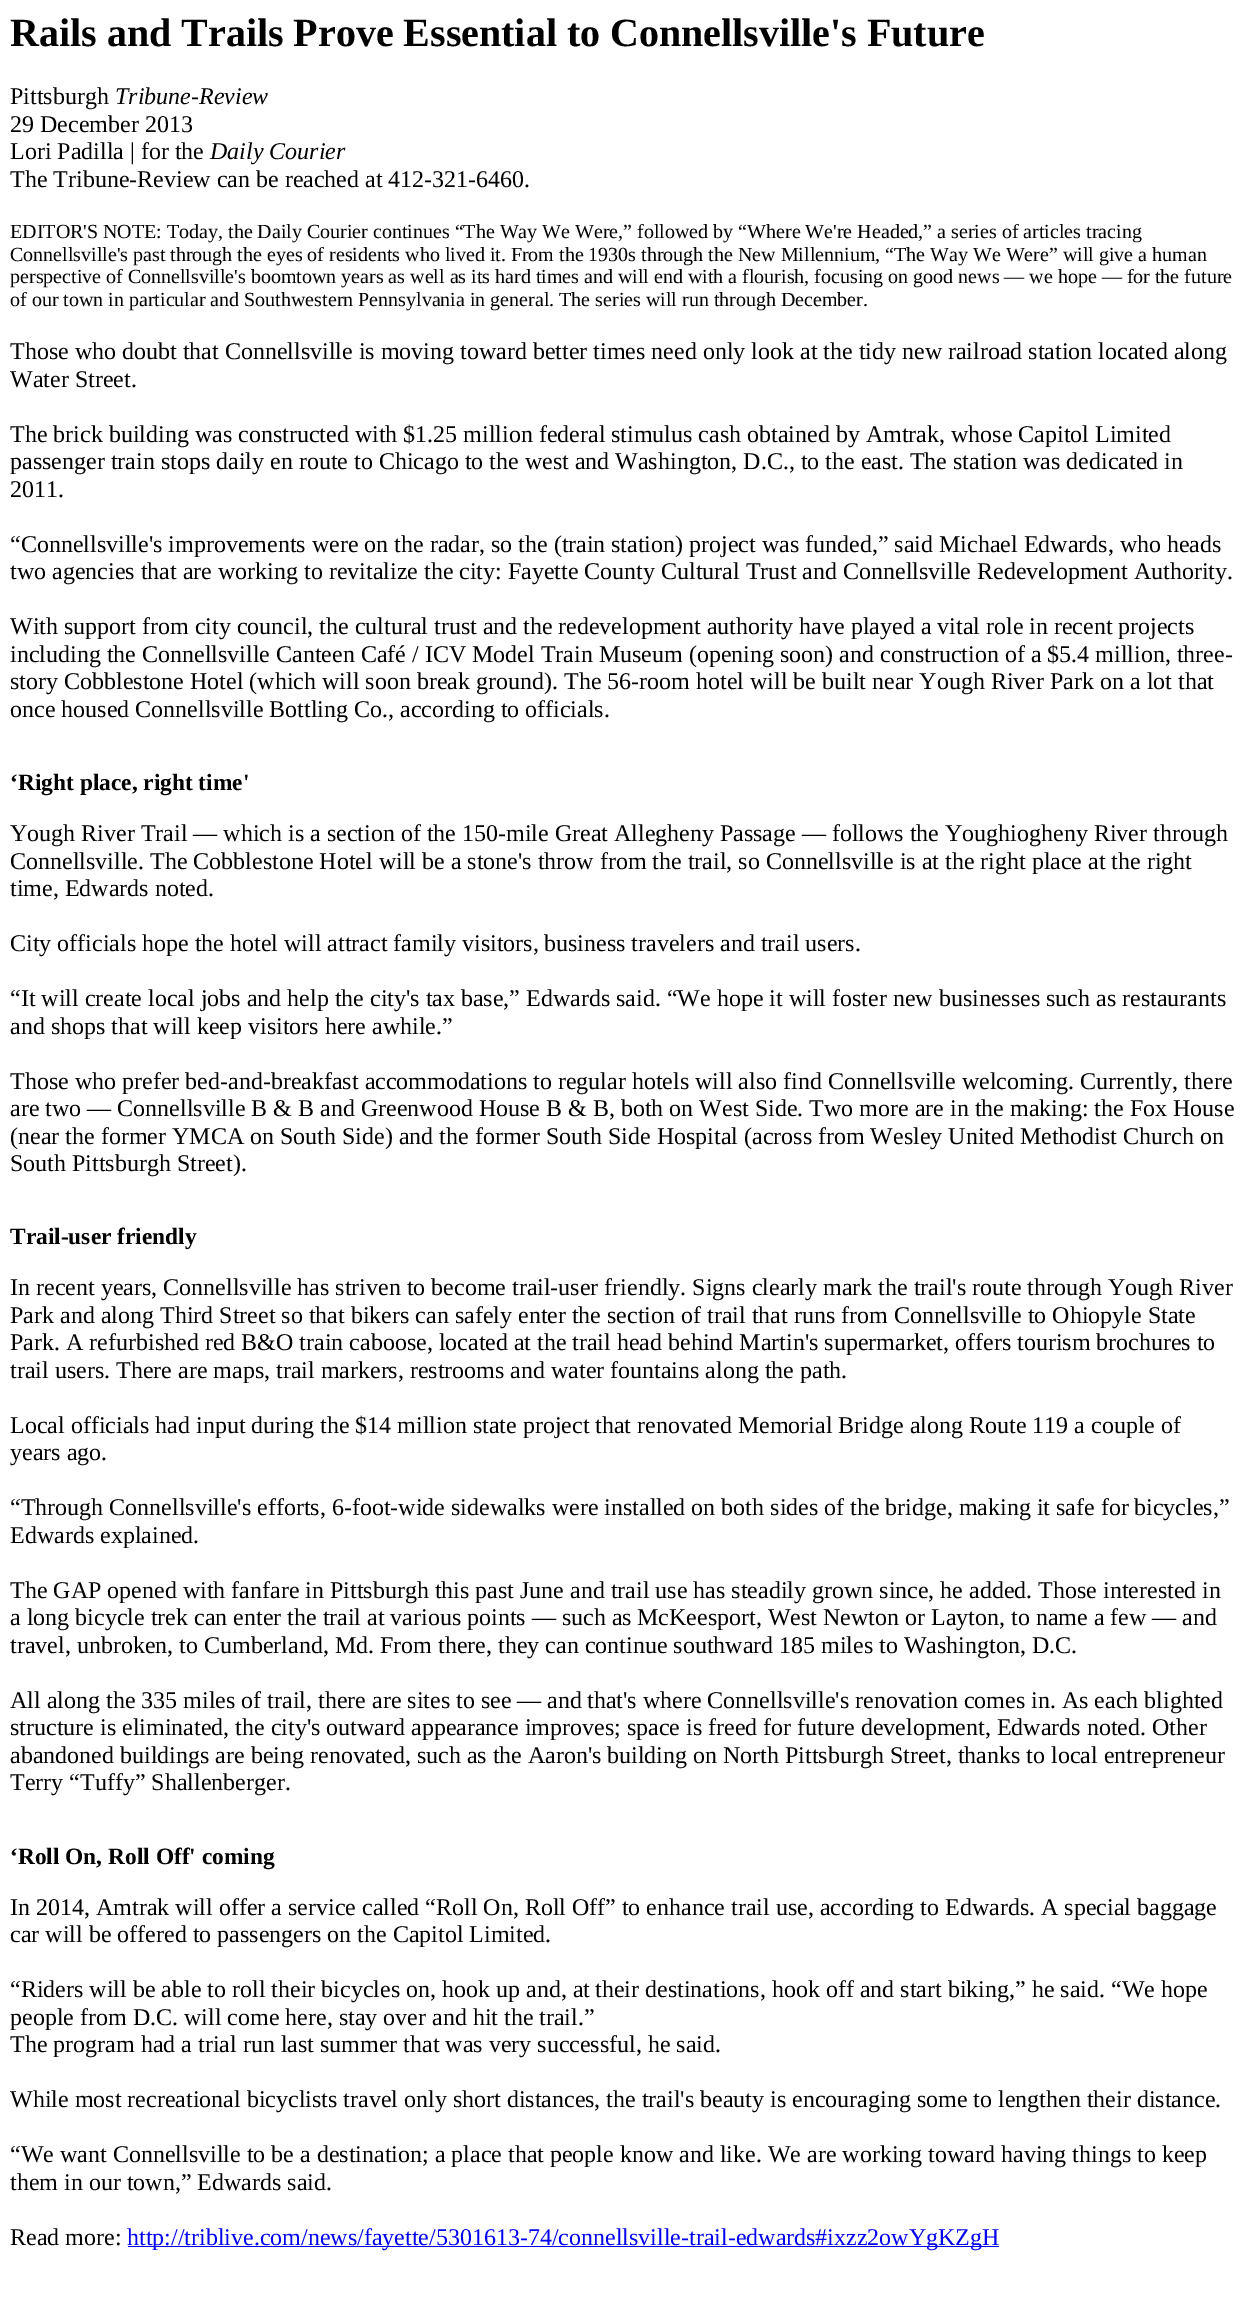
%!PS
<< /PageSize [1244 2314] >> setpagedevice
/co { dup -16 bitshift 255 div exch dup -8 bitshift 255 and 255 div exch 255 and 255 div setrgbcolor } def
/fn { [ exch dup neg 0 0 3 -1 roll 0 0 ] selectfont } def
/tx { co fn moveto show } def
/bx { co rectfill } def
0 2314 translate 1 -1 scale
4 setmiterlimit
0 0 1244 2314 16#FFFFFF bx
128 2246 871 1 16#0000EE bx
(Rails and Trails Prove Essential to Connellsville's Future) 10 46 /LiberationSerif-Bold 40 16#000000 tx
(Pittsburgh) 10 104 /LiberationSerif-Regular 24 16#000000 tx
(Tribune-Review) 115 104 /LiberationSerif-Italic 24 16#000000 tx
(29 December 2013) 10 132 /LiberationSerif-Regular 24 16#000000 tx
(Lori Padilla | for the) 10 159 /LiberationSerif-Regular 24 16#000000 tx
(Daily Courier) 210 159 /LiberationSerif-Italic 24 16#000000 tx
(The Tribune-Review can be reached at 412-321-6460.) 10 187 /LiberationSerif-Regular 24 16#000000 tx
(EDITOR'S NOTE: Today, the Daily Courier continues “The Way We Were,” followed by “Where We're Headed,” a series of articles tracing) 10 238 /LiberationSerif-Regular 20 16#000000 tx
(Connellsville's past through the eyes of residents who lived it. From the 1930s through the New Millennium, “The Way We Were” will give a human) 10 261 /LiberationSerif-Regular 20 16#000000 tx
(perspective of Connellsville's boomtown years as well as its hard times and will end with a flourish, focusing on good news — we hope — for the future) 10 283 /LiberationSerif-Regular 20 16#000000 tx
(of our town in particular and Southwestern Pennsylvania in general. The series will run through December.) 10 306 /LiberationSerif-Regular 20 16#000000 tx
(Those who doubt that Connellsville is moving toward better times need only look at the tidy new railroad station located along) 10 359 /LiberationSerif-Regular 24 16#000000 tx
(Water Street.) 10 387 /LiberationSerif-Regular 24 16#000000 tx
(The brick building was constructed with $1.25 million federal) 10 442 /LiberationSerif-Regular 24 16#000000 tx
(stimulus cash obtained by Amtrak, whose Capitol Limited) 611 442 /LiberationSerif-Regular 24 16#000000 tx
(passenger train stops daily en route to Chicago to the west and Washington, D.C., to the east. The station was dedicated in) 10 469 /LiberationSerif-Regular 24 16#000000 tx
(2011.) 10 497 /LiberationSerif-Regular 24 16#000000 tx
(“Connellsville's improvements were on the radar, so the \(train) 10 552 /LiberationSerif-Regular 24 16#000000 tx
(station\) project was funded,” said Michael Edwards, who heads) 611 552 /LiberationSerif-Regular 24 16#000000 tx
(two agencies that are working to revitalize the city: Fayette County Cultural Trust and Connellsville Redevelopment Authority.) 10 579 /LiberationSerif-Regular 24 16#000000 tx
(With support from city council, the cultural trust and the) 10 634 /LiberationSerif-Regular 24 16#000000 tx
(redevelopment authority have played a vital role in recent) 558 634 /LiberationSerif-Regular 24 16#000000 tx
(projects) 1118 634 /LiberationSerif-Regular 24 16#000000 tx
(including the Connellsville Canteen Café / ICV) 10 662 /LiberationSerif-Regular 24 16#000000 tx
(Model Train Museum \(opening soon\) and construction of a $5.4 million, three-) 472 662 /LiberationSerif-Regular 24 16#000000 tx
(story Cobblestone Hotel \(which will soon break) 10 689 /LiberationSerif-Regular 24 16#000000 tx
(ground\). The 56-room hotel will be built near Yough River Park on a lot that) 476 689 /LiberationSerif-Regular 24 16#000000 tx
(once housed Connellsville Bottling Co., according to) 10 717 /LiberationSerif-Regular 24 16#000000 tx
(officials.) 525 717 /LiberationSerif-Regular 24 16#000000 tx
(‘Right place, right time') 10 790 /LiberationSerif-Bold 23.4 16#000000 tx
(Yough River Trail — which is a section of the 150-mile Great Allegheny Passage — follows the Youghiogheny River through) 10 841 /LiberationSerif-Regular 24 16#000000 tx
(Connellsville. The Cobblestone Hotel will be a stone's throw from the trail, so Connellsville is at the right place at the right) 10 869 /LiberationSerif-Regular 24 16#000000 tx
(time, Edwards noted.) 10 896 /LiberationSerif-Regular 24 16#000000 tx
(City officials hope the hotel will attract family visitors,) 10 951 /LiberationSerif-Regular 24 16#000000 tx
(business travelers and trail users.) 544 951 /LiberationSerif-Regular 24 16#000000 tx
(“It will create local jobs and help the city's tax base,” Edwards said. “We hope it will foster new businesses such as restaurants) 10 1006 /LiberationSerif-Regular 24 16#000000 tx
(and shops that will keep visitors here awhile.”) 10 1034 /LiberationSerif-Regular 24 16#000000 tx
(Those who prefer bed-and-breakfast accommodations to regular hotels will also find Connellsville welcoming. Currently, there) 10 1089 /LiberationSerif-Regular 24 16#000000 tx
(are two — Connellsville B & B and Greenwood House B & B, both on West Side. Two more are in the making: the Fox House) 10 1116 /LiberationSerif-Regular 24 16#000000 tx
(\(near the former YMCA on South Side\) and the former South Side Hospital \(across from Wesley United Methodist Church on) 10 1144 /LiberationSerif-Regular 24 16#000000 tx
(South Pittsburgh Street\).) 10 1171 /LiberationSerif-Regular 24 16#000000 tx
(Trail-user friendly) 10 1244 /LiberationSerif-Bold 23.4 16#000000 tx
(In recent years, Connellsville has striven to become trail-user friendly. Signs clearly mark the trail's route through Yough River) 10 1295 /LiberationSerif-Regular 24 16#000000 tx
(Park and along Third Street so that bikers can safely enter the section of trail that runs from Connellsville to Ohiopyle State) 10 1323 /LiberationSerif-Regular 24 16#000000 tx
(Park. A refurbished red B&O train caboose, located at the) 10 1350 /LiberationSerif-Regular 24 16#000000 tx
(trail head behind Martin's supermarket, offers tourism brochures to) 572 1350 /LiberationSerif-Regular 24 16#000000 tx
(trail users. There are maps, trail markers, restrooms and water) 10 1378 /LiberationSerif-Regular 24 16#000000 tx
(fountains along the path.) 610 1378 /LiberationSerif-Regular 24 16#000000 tx
(Local officials had input during the $14 million state project) 10 1433 /LiberationSerif-Regular 24 16#000000 tx
(that renovated Memorial Bridge along Route 119 a couple of) 595 1433 /LiberationSerif-Regular 24 16#000000 tx
(years ago.) 10 1460 /LiberationSerif-Regular 24 16#000000 tx
(“Through Connellsville's efforts, 6-foot-wide sidewalks were installed on both sides of the bridge, making it safe for) 10 1515 /LiberationSerif-Regular 24 16#000000 tx
(bicycles,”) 1134 1515 /LiberationSerif-Regular 24 16#000000 tx
(Edwards explained.) 10 1543 /LiberationSerif-Regular 24 16#000000 tx
(The GAP opened with fanfare in Pittsburgh this past June and trail use has steadily grown since, he added. Those interested in) 10 1598 /LiberationSerif-Regular 24 16#000000 tx
(a long bicycle trek can enter the trail at various points — such as) 10 1625 /LiberationSerif-Regular 24 16#000000 tx
(McKeesport, West Newton or Layton, to name a few — and) 637 1625 /LiberationSerif-Regular 24 16#000000 tx
(travel, unbroken, to Cumberland, Md. From there, they can continue southward 185 miles to Washington, D.C.) 10 1653 /LiberationSerif-Regular 24 16#000000 tx
(All along the 335 miles of trail, there are sites to see — and) 10 1708 /LiberationSerif-Regular 24 16#000000 tx
(that's where Connellsville's renovation comes in. As each blighted) 587 1708 /LiberationSerif-Regular 24 16#000000 tx
(structure is eliminated, the city's outward appearance improves; space is freed for future development, Edwards noted. Other) 10 1735 /LiberationSerif-Regular 24 16#000000 tx
(abandoned buildings are being renovated, such as the Aaron's) 10 1763 /LiberationSerif-Regular 24 16#000000 tx
(building on North Pittsburgh Street, thanks to local entrepreneur) 607 1763 /LiberationSerif-Regular 24 16#000000 tx
(Terry “Tuffy” Shallenberger.) 10 1790 /LiberationSerif-Regular 24 16#000000 tx
(‘Roll On, Roll Off' coming) 10 1864 /LiberationSerif-Bold 23.4 16#000000 tx
(In 2014, Amtrak will offer a service called “Roll On, Roll Off” to enhance trail use, according to Edwards. A special baggage) 10 1915 /LiberationSerif-Regular 24 16#000000 tx
(car will be offered to passengers on the Capitol Limited.) 10 1942 /LiberationSerif-Regular 24 16#000000 tx
(“Riders will be able to roll their bicycles on, hook up and, at) 10 1997 /LiberationSerif-Regular 24 16#000000 tx
(their destinations, hook off and start biking,” he said. “We hope) 595 1997 /LiberationSerif-Regular 24 16#000000 tx
(people from D.C. will come here, stay over and hit the trail.”) 10 2025 /LiberationSerif-Regular 24 16#000000 tx
(The program had a trial run last summer that was very successful, he said.) 10 2052 /LiberationSerif-Regular 24 16#000000 tx
(While most recreational bicyclists travel only short distances, the trail's beauty is encouraging some to lengthen their distance.) 10 2107 /LiberationSerif-Regular 24 16#000000 tx
(“We want Connellsville to be a destination; a place that people know and like. We are working toward having things to keep) 10 2162 /LiberationSerif-Regular 24 16#000000 tx
(them in our town,” Edwards said.) 10 2190 /LiberationSerif-Regular 24 16#000000 tx
(Read more:) 10 2245 /LiberationSerif-Regular 24 16#000000 tx
(http://triblive.com/news/fayette/5301613-74/connellsville-trail-edwards#ixzz2owYgKZgH) 127 2245 /LiberationSerif-Regular 24 16#0000EE tx
showpage
